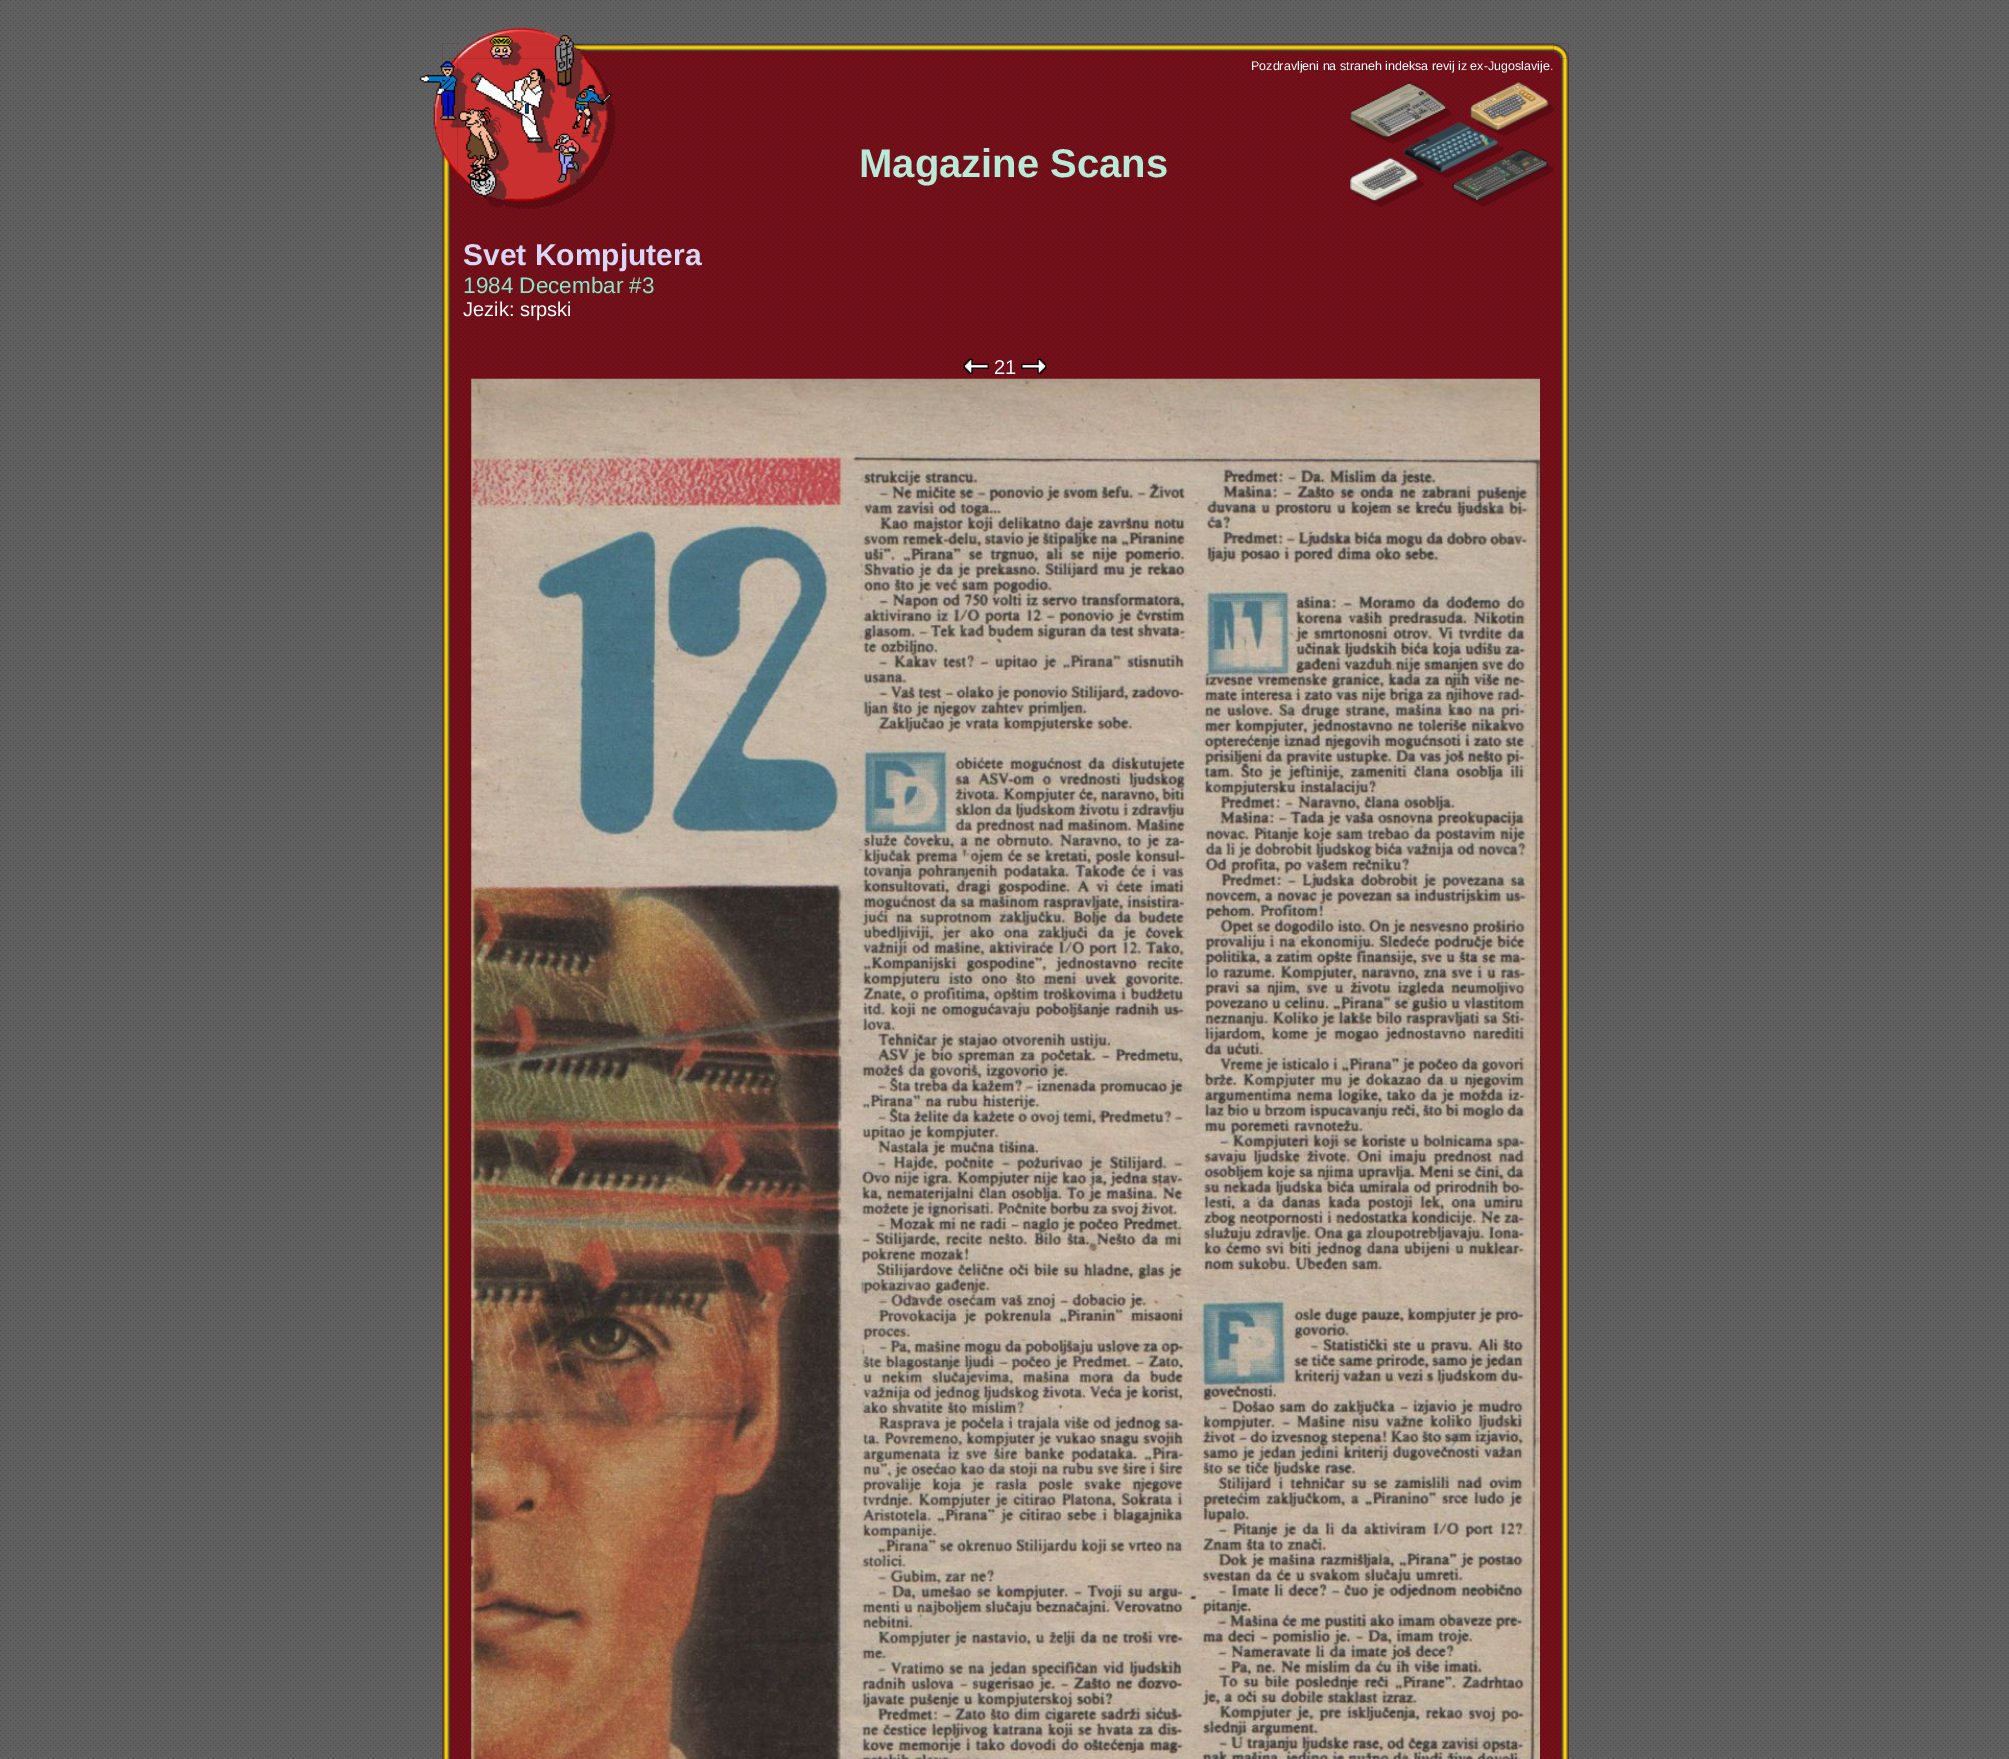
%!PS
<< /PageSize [2009 1759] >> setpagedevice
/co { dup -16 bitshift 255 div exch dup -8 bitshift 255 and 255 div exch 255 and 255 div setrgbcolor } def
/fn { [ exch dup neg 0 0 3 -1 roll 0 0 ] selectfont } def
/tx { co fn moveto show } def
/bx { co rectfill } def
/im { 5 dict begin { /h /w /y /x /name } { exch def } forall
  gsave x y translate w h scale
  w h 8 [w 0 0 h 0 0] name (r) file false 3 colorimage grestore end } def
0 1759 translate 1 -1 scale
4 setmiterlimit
0 0 2009 1759 16#FFFFFF bx
(media/1.raw) 0 0 2009 1759 im
(media/4.raw) 442 43 1127 1716 im
(media/6.raw) 457 43 1097 9 im
(media/2.raw) 457 27 177 17 im
(media/9.raw) 442 58 9 1701 im
(media/3.raw) 419 58 24 151 im
(media/5.raw) 442 43 16 16 im
(media/7.raw) 457 43 188 16 im
(media/16.raw) 1561 58 8 1701 im
(media/8.raw) 1553 43 16 16 im
(media/10.raw) 442 58 16 151 im
(media/11.raw) 457 58 159 151 im
(media/12.raw) 1350 82 204 125 im
(media/13.raw) 963 358 26 16 im
(media/14.raw) 1021 358 26 16 im
(media/15.raw) 471 378 1069 1381 im
(media/17.raw) 1561 1000 8 15 im
(Pozdravljeni na straneh indeksa revij iz ex-Jugoslavije.) 1251 70 /LiberationSans-Regular 12.5 16#FFFFFF tx
(Magazine Scans) 859 177 /LiberationSans-Bold 40 16#B9EAD7 tx
(Svet Kompjutera) 463 265 /LiberationSans-Bold 30 16#D9D7F7 tx
(1984 Decembar #3) 463 293 /LiberationSans-Regular 22.5 16#89E7C7 tx
(Jezik: srpski) 463 316 /LiberationSans-Regular 20 16#FFFFFF tx
(21) 994 374 /LiberationSans-Regular 20 16#FFFFFF tx
showpage
